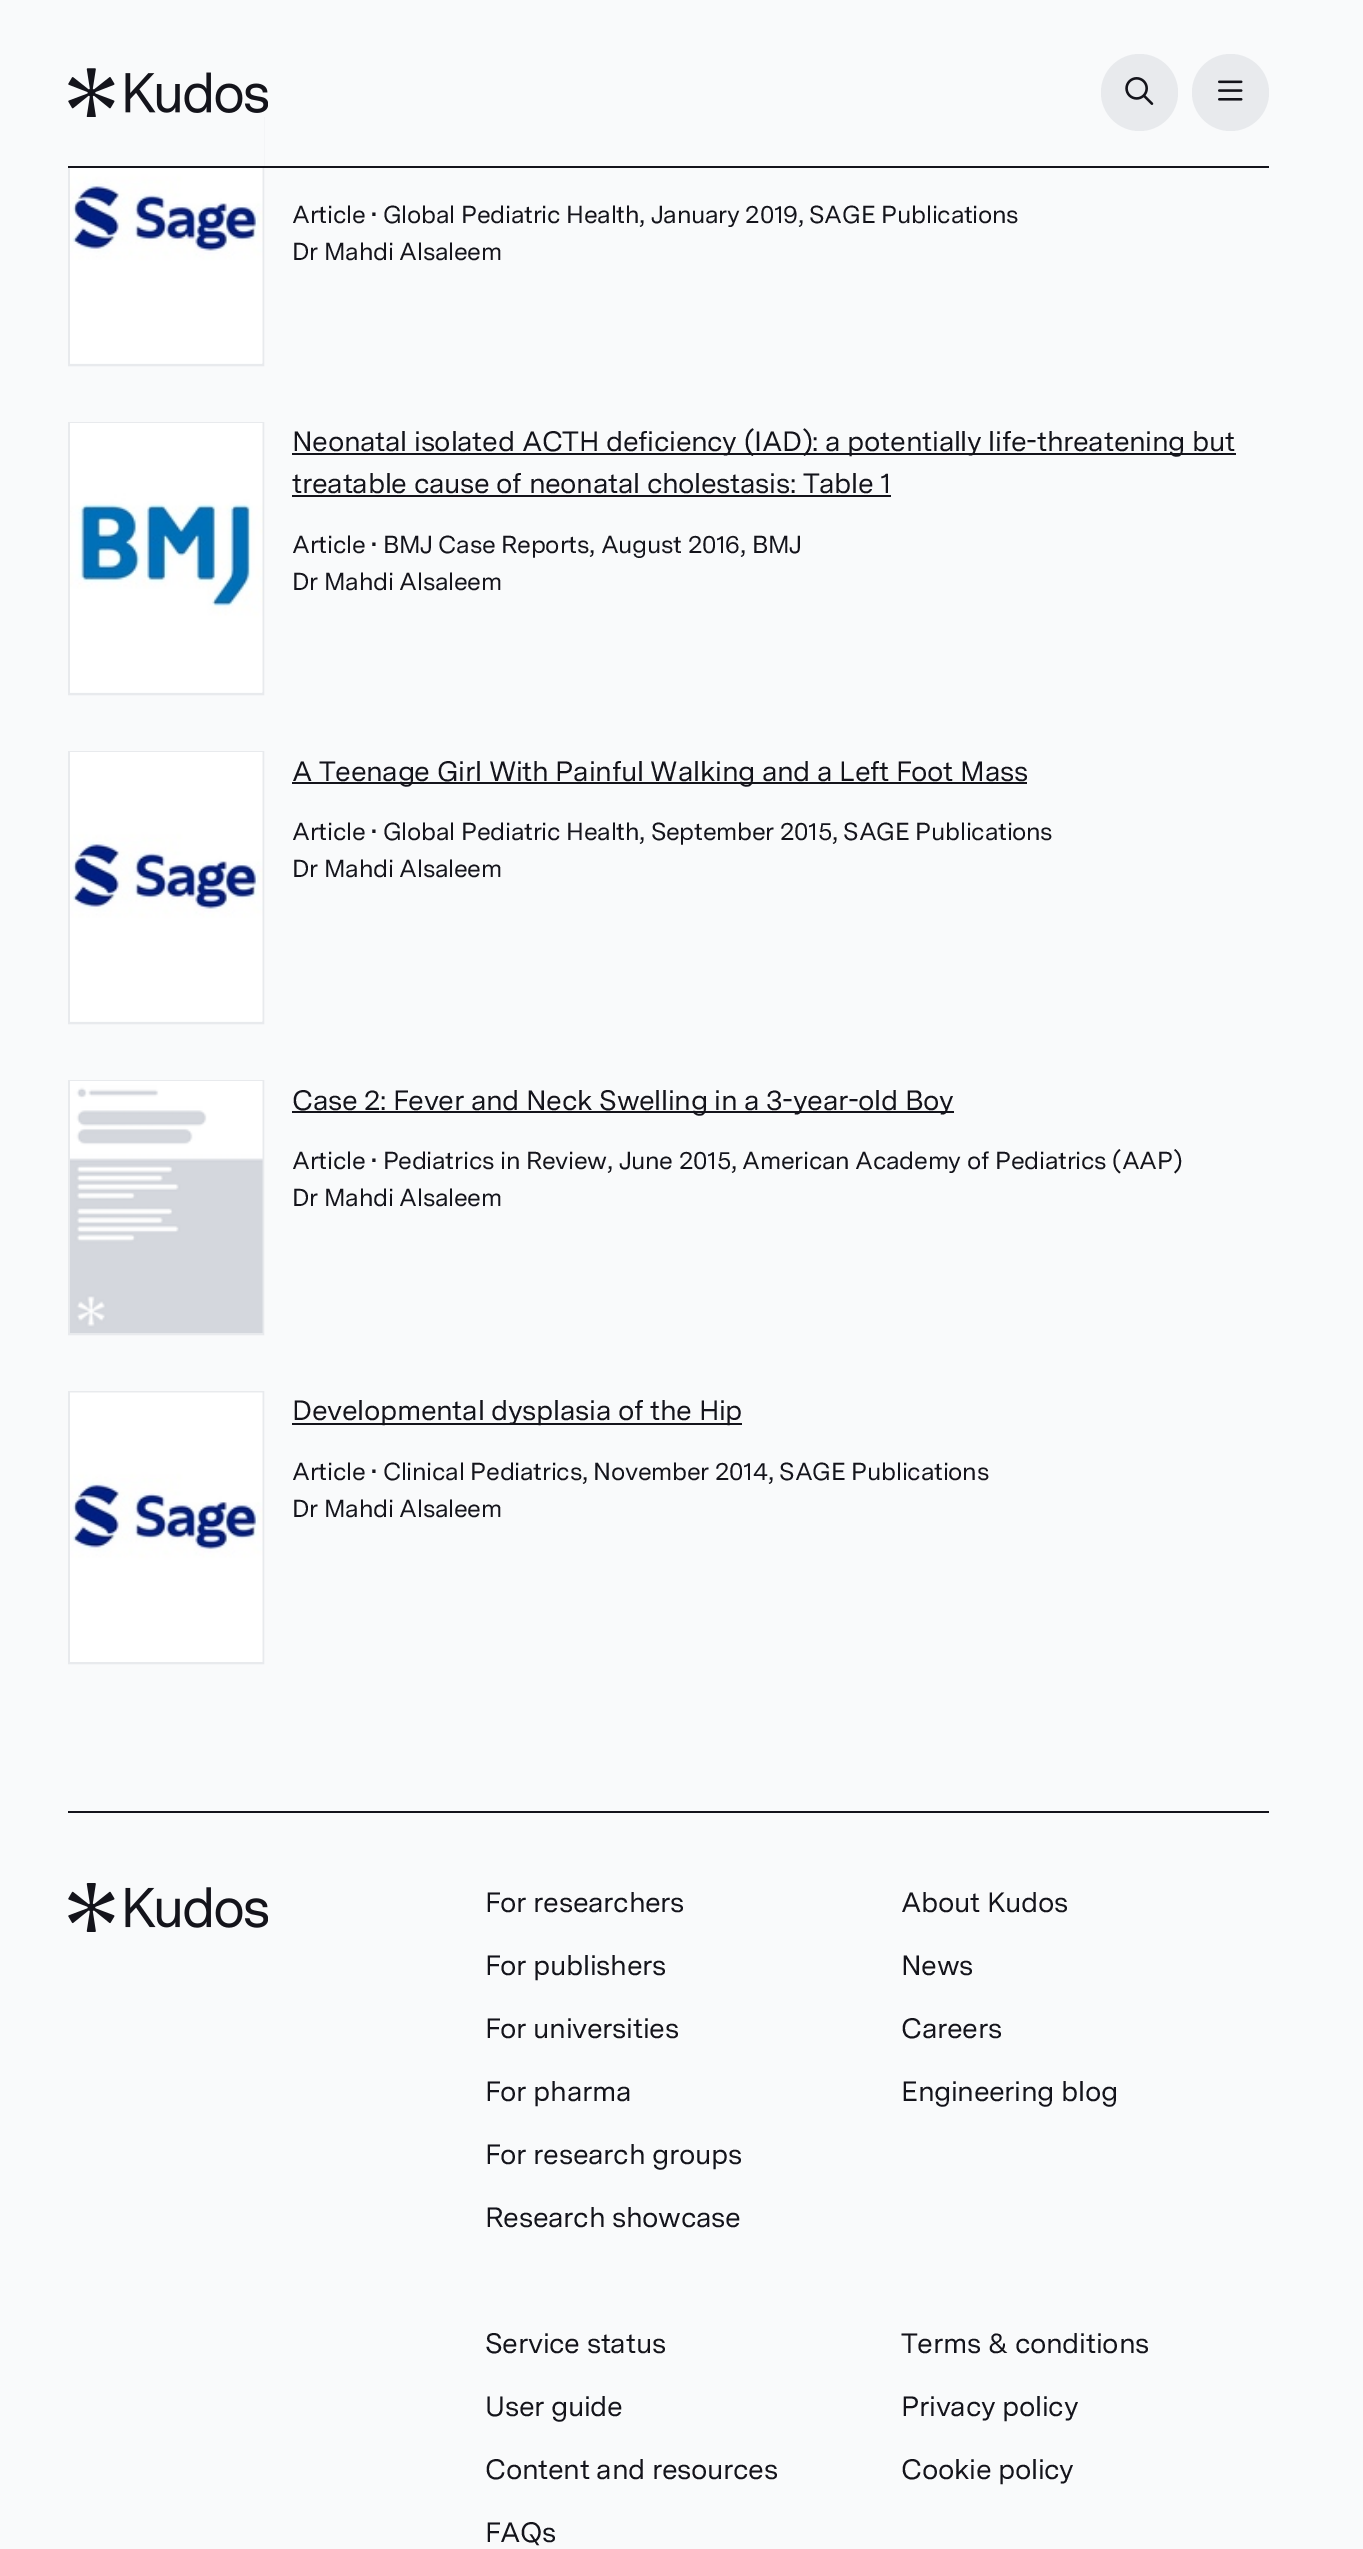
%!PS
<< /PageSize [1363 2549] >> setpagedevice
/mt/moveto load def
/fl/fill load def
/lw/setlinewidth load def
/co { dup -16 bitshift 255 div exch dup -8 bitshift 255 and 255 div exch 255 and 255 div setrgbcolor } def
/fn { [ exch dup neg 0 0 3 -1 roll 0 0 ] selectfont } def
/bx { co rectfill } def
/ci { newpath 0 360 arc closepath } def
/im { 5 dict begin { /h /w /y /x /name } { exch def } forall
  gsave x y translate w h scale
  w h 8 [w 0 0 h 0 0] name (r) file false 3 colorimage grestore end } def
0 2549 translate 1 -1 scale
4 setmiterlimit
0 0 1363 2549 16#F9FAFB bx
16#E8EAED co
2 lw
69 94 194 271 rectstroke
68 93 196 75 16#F9FAFB bx
68 166 1201 2 16#14141B bx
(media/1.raw) 68 68 200 49 im
16#E8EAED co
1139.5 92.5 38.5 ci fl
(media/2.raw) 1125 77 29 28 im
1230.5 92.5 38.5 ci fl
(media/3.raw) 1218 80 25 21 im
(media/4.raw) 70 168 193 196 im
69 423 194 271 rectstroke
(media/5.raw) 70 423 193 270 im
292 453 944 2 16#14141B bx
292 495 599 2 16#14141B bx
16#E8EAED co
69 752 194 271 rectstroke
(media/6.raw) 70 752 193 270 im
292 782 735 2 16#14141B bx
16#E8EAED co
69 1081 194 253 rectstroke
(media/7.raw) 70 1081 193 252 im
292 1111 662 2 16#14141B bx
16#E8EAED co
69 1392 194 271 rectstroke
(media/8.raw) 70 1392 193 270 im
292 1423 450 2 16#14141B bx
68 1811 1201 2 16#14141B bx
(media/9.raw) 68 1883 200 49 im
/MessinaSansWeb-Regular 24.5 fn
292 223 mt -.35 0 (Article • Global Pediatric Health, January 2019, SAGE Publications) ashow
292 260 mt -.35 0 (Dr Mahdi Alsaleem) ashow
/MessinaSansWeb-Regular 28 fn
292 451 mt -.35 0 (Neonatal isolated ACTH deficiency \(IAD\): a potentially life-threatening but) ashow
292 493 mt -.35 0 (treatable cause of neonatal cholestasis: Table 1) ashow
/MessinaSansWeb-Regular 24.5 fn
292 553 mt -.35 0 (Article • BMJ Case Reports, August 2016, BMJ) ashow
292 590 mt -.35 0 (Dr Mahdi Alsaleem) ashow
/MessinaSansWeb-Regular 28 fn
292 781 mt -.35 0 (A Teenage Girl With Painful Walking and a Left Foot Mass) ashow
/MessinaSansWeb-Regular 24.5 fn
292 840 mt -.35 0 (Article • Global Pediatric Health, September 2015, SAGE Publications) ashow
292 877 mt -.35 0 (Dr Mahdi Alsaleem) ashow
/MessinaSansWeb-Regular 28 fn
292 1110 mt -.35 0 (Case 2: Fever and Neck Swelling in a 3-year-old Boy) ashow
/MessinaSansWeb-Regular 24.5 fn
292 1169 mt -.35 0 (Article • Pediatrics in Review, June 2015, American Academy of Pediatrics \(AAP\)) ashow
292 1206 mt -.35 0 (Dr Mahdi Alsaleem) ashow
/MessinaSansWeb-Regular 28 fn
292 1420 mt -.35 0 (Developmental dysplasia of the Hip) ashow
/MessinaSansWeb-Regular 24.5 fn
292 1480 mt -.35 0 (Article • Clinical Pediatrics, November 2014, SAGE Publications) ashow
292 1517 mt -.35 0 (Dr Mahdi Alsaleem) ashow
/MessinaSansWeb-Regular 28 fn
485 1912 mt -.35 0 (For researchers) ashow
485 1975 mt -.35 0 (For publishers) ashow
485 2038 mt -.35 0 (For universities) ashow
485 2101 mt -.35 0 (For pharma) ashow
485 2164 mt -.35 0 (For research groups) ashow
485 2227 mt -.35 0 (Research showcase) ashow
901 1912 mt -.35 0 (About Kudos) ashow
901 1975 mt -.35 0 (News) ashow
901 2038 mt -.35 0 (Careers) ashow
901 2101 mt -.35 0 (Engineering blog) ashow
485 2353 mt -.35 0 (Service status) ashow
485 2416 mt -.35 0 (User guide) ashow
485 2479 mt -.35 0 (Content and resources) ashow
485 2542 mt -.35 0 (FAQs) ashow
901 2353 mt -.35 0 (Terms & conditions) ashow
901 2416 mt -.35 0 (Privacy policy) ashow
901 2479 mt -.35 0 (Cookie policy) ashow
showpage
